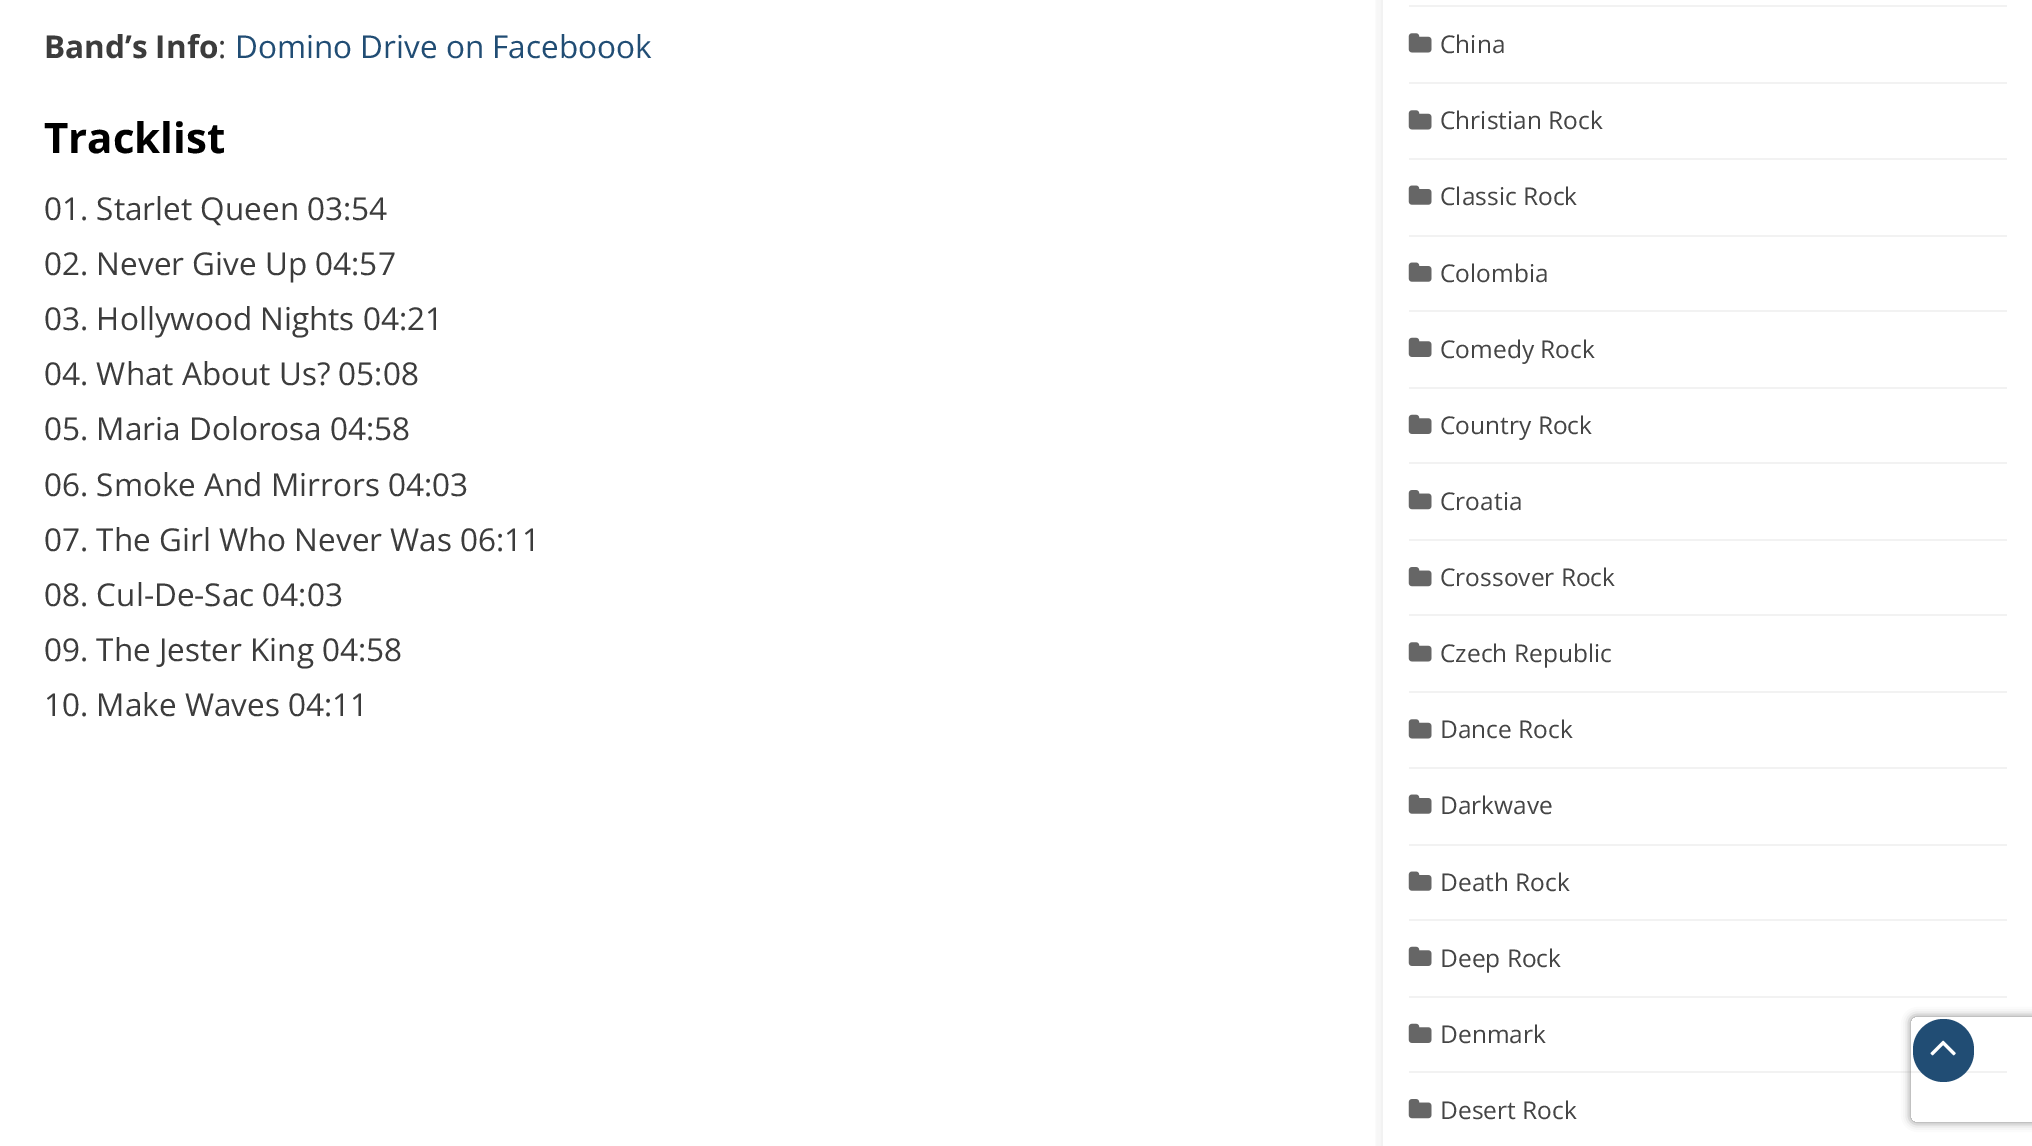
%!PS
<< /PageSize [2032 1146] /PageUsesTransparency true >> setpagedevice
/mt/moveto load def
/li/lineto load def
/ct/curveto load def
/cp/closepath load def
/fl/fill load def
/gs/gsave load def
/gr/grestore load def
/co { dup -16 bitshift 255 div exch dup -8 bitshift 255 and 255 div exch 255 and 255 div setrgbcolor } def
/fn { [ exch dup neg 0 0 3 -1 roll 0 0 ] selectfont } def
/tx { co fn moveto show } def
/bx { co rectfill } def
/al { dup .setfillconstantalpha .setstrokeconstantalpha } def
/rr { 5 dict begin { /r /h /w /y /x } { exch def } forall
  x r add y moveto x w add y 2 copy h add r arct x w add y h add x 1 index r arct
  x y h add x y r arct x y 2 copy exch w add exch r arct closepath end } def
/sh { 12 dict begin { /a /b /q /h /w /y /x } { exch def } forall gsave /was 0 def
  9 -2 -9 { dup b mul 4 div /e exch def 1 sub .425 mul 2.718 exch exp 1 add a .99 .min exch div /now exch def
    1 1 now sub 1 was sub div sub al /was now def
    w h .min e 2 mul add 0 gt { x e sub y e sub w e 2 mul add h e 2 mul add
      q e add b .6 mul add w h .min 2 div e add .min 0 .max rr fill } if } for grestore end } def
/im { 5 dict begin { /h /w /y /x /name } { exch def } forall
  gsave x y translate w h scale
  w h 8 [w 0 0 h 0 0] name (r) file false 3 colorimage grestore end } def
0 .pushpdf14devicefilter
0 1146 translate 1 -1 scale
4 setmiterlimit
0 0 2032 1146 16#FFFFFF bx
gs
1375 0 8 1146 rectclip
16#000000 co
1383 -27 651 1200 0 9 .1 sh
gr
1409 5 598 2 16#F2F2F2 bx
1409 82 598 2 16#F2F2F2 bx
(media/1.raw) 1408 33 24 20 im
1409 158 598 2 16#F2F2F2 bx
(media/1.raw) 1408 110 24 20 im
1409 235 598 2 16#F2F2F2 bx
(media/2.raw) 1408 185 24 20 im
1409 310 598 2 16#F2F2F2 bx
(media/2.raw) 1408 262 24 20 im
1409 387 598 2 16#F2F2F2 bx
(media/3.raw) 1408 337 24 20 im
1409 462 598 2 16#F2F2F2 bx
(media/3.raw) 1408 414 24 20 im
1409 539 598 2 16#F2F2F2 bx
(media/4.raw) 1408 490 24 20 im
1409 614 598 2 16#F2F2F2 bx
(media/4.raw) 1408 567 24 20 im
1409 691 598 2 16#F2F2F2 bx
(media/1.raw) 1408 642 24 20 im
1409 767 598 2 16#F2F2F2 bx
(media/1.raw) 1408 719 24 20 im
1409 844 598 2 16#F2F2F2 bx
(media/2.raw) 1408 794 24 20 im
1409 919 598 2 16#F2F2F2 bx
(media/2.raw) 1408 871 24 20 im
1409 996 598 2 16#F2F2F2 bx
(media/3.raw) 1408 946 24 20 im
1409 1071 598 2 16#F2F2F2 bx
(media/3.raw) 1408 1023 24 20 im
(media/4.raw) 1408 1099 24 20 im
gs
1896 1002 mt 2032 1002 li 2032 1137 li 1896 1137 li cp 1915 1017 mt 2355 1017 li 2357 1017 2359 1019 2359 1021 ct 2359 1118 li 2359 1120 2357 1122 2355 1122 ct 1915 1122 li 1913 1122 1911 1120 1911 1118 ct 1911 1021 li 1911 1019 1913 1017 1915 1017 ct cp eoclip newpath
16#808080 co
1911 1017 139 105 4 4.5 1 sh
gr
16#214D74 co
1913 1019 61 63 30.5 rr fl
(media/5.raw) 1930 1040 26 16 im
(Band’s Info) 44 58 /OpenSans-Bold 31.5 16#3C3C3C tx
(:) 218 58 /OpenSans-Regular 31.5 16#3C3C3C tx
(Domino Drive on Faceboook) 235 58 /OpenSans-Regular 31.5 16#214D74 tx
(Tracklist) 44 153 /OpenSans-Bold 42 16#000000 tx
(01. Starlet Queen 03:54) 44 220 /OpenSans-Regular 31.5 16#3C3C3C tx
(02. Never Give Up 04:57) 44 275 /OpenSans-Regular 31.5 16#3C3C3C tx
(03. Hollywood Nights 04:21) 44 330 /OpenSans-Regular 31.5 16#3C3C3C tx
(04. What About Us? 05:08) 44 385 /OpenSans-Regular 31.5 16#3C3C3C tx
(05. Maria Dolorosa 04:58) 44 440 /OpenSans-Regular 31.5 16#3C3C3C tx
(06. Smoke And Mirrors 04:03) 44 496 /OpenSans-Regular 31.5 16#3C3C3C tx
(07. The Girl Who Never Was 06:11) 44 551 /OpenSans-Regular 31.5 16#3C3C3C tx
(08. Cul-De-Sac 04:03) 44 606 /OpenSans-Regular 31.5 16#3C3C3C tx
(09. The Jester King 04:58) 44 661 /OpenSans-Regular 31.5 16#3C3C3C tx
(10. Make Waves 04:11) 44 716 /OpenSans-Regular 31.5 16#3C3C3C tx
(China) 1440 53 /OpenSans-Regular 24.5 16#444444 tx
(Christian Rock) 1440 129 /OpenSans-Regular 24.5 16#444444 tx
(Classic Rock) 1440 205 /OpenSans-Regular 24.5 16#444444 tx
(Colombia) 1440 282 /OpenSans-Regular 24.5 16#444444 tx
(Comedy Rock) 1440 358 /OpenSans-Regular 24.5 16#444444 tx
(Country Rock) 1440 434 /OpenSans-Regular 24.5 16#444444 tx
(Croatia) 1440 510 /OpenSans-Regular 24.5 16#444444 tx
(Crossover Rock) 1440 586 /OpenSans-Regular 24.5 16#444444 tx
(Czech Republic) 1440 662 /OpenSans-Regular 24.5 16#444444 tx
(Dance Rock) 1440 738 /OpenSans-Regular 24.5 16#444444 tx
(Darkwave) 1440 814 /OpenSans-Regular 24.5 16#444444 tx
(Death Rock) 1440 891 /OpenSans-Regular 24.5 16#444444 tx
(Deep Rock) 1440 967 /OpenSans-Regular 24.5 16#444444 tx
(Denmark) 1440 1043 /OpenSans-Regular 24.5 16#444444 tx
(Desert Rock) 1440 1119 /OpenSans-Regular 24.5 16#444444 tx
.poppdf14devicefilter showpage
